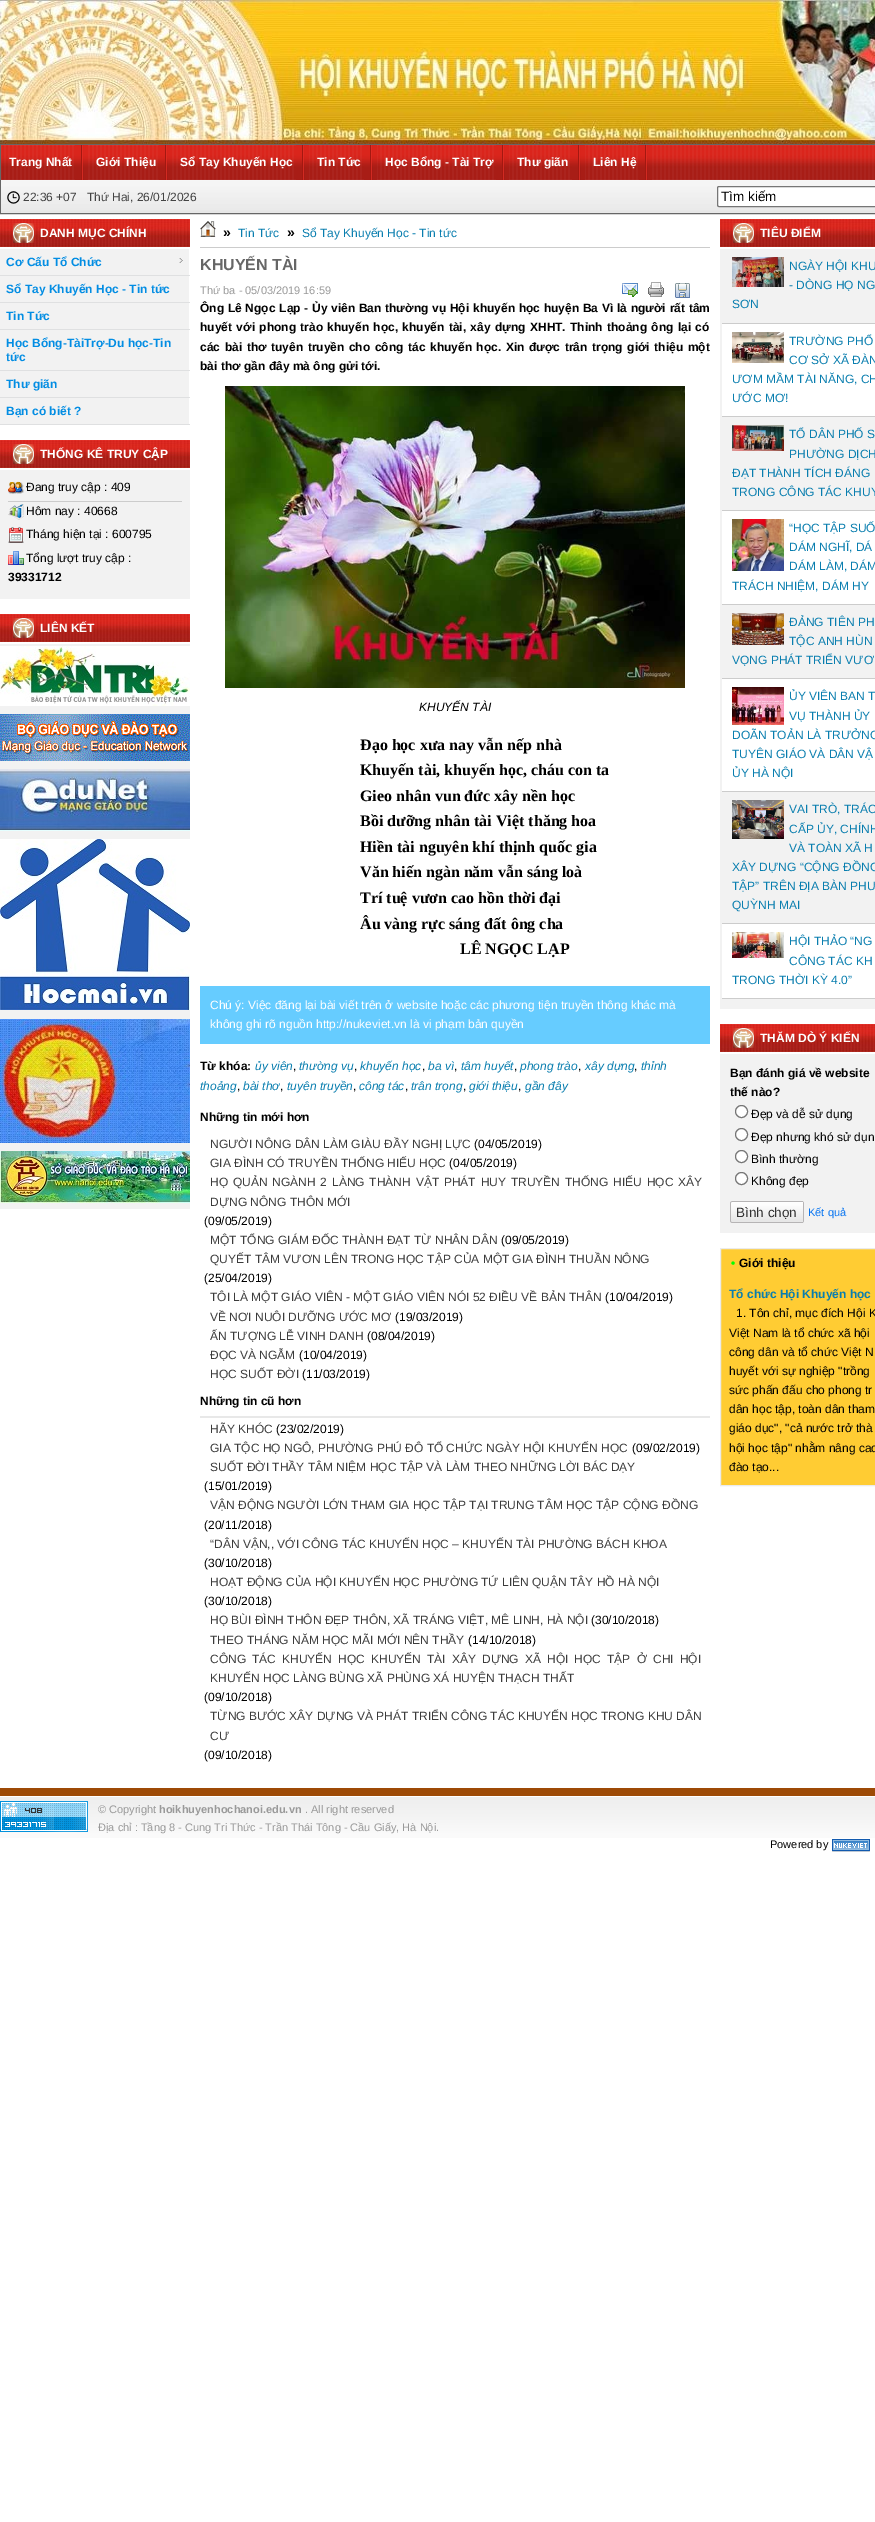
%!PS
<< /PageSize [875 2522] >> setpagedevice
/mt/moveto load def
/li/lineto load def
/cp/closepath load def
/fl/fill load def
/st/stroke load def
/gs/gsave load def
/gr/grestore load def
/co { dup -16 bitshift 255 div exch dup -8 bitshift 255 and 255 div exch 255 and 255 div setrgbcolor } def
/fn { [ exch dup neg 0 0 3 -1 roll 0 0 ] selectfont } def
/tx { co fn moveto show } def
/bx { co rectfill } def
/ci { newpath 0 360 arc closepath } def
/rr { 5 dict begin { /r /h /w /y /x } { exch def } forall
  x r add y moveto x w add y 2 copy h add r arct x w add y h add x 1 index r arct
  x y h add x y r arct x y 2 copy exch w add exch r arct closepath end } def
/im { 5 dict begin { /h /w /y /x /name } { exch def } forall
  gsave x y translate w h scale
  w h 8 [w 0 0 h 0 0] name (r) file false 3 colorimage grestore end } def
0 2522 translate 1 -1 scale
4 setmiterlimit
0 0 875 2522 16#FFFFFF bx
(media/1.raw) 0 0 875 144 im
16#666666 co
.5 144.5 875 69 rectstroke
(media/2.raw) 1 145 874 35 im
(media/3.raw) 75 145 13 35 im
(media/3.raw) 159 145 13 35 im
(media/4.raw) 296 145 13 35 im
(media/4.raw) 364 145 13 35 im
(media/4.raw) 496 145 13 35 im
(media/4.raw) 572 145 13 35 im
(media/3.raw) 639 145 13 35 im
(media/5.raw) 1 180 874 33 im
(media/6.raw) 7 191 13 13 im
16#FFFFFF co
717.5 186.5 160 20 1.5 rr gs fl gr
16#767676 co
st
0 249 189 175 16#F2F2F2 bx
(media/7.raw) 0 219 190 28 im
0 275 190 1 16#DFE0E1 bx
(media/8.raw) 179 258 4 5 im
0 302 190 1 16#DFE0E1 bx
0 329 190 1 16#DFE0E1 bx
0 370 190 1 16#DFE0E1 bx
0 397 190 1 16#DFE0E1 bx
0 424 190 1 16#DFE0E1 bx
0 470 190 129 16#F2F2F2 bx
(media/7.raw) 0 440 190 28 im
(media/9.raw) 8 481 16 13 im
8 501 174 1 16#CCCCCC bx
(media/10.raw) 8 504 16 16 im
(media/11.raw) 8 527 16 16 im
(media/12.raw) 8 551 16 14 im
0 644 190 565 16#F2F2F2 bx
(media/7.raw) 0 614 190 28 im
(media/13.raw) 0 646 190 60 im
(media/14.raw) 0 714 190 47 im
(media/15.raw) 0 769 190 62 im
(media/16.raw) 0 839 190 171 im
(media/17.raw) 0 1019 190 124 im
(media/18.raw) 0 1151 190 52 im
200 247 510 1 16#CCCCCC bx
(media/19.raw) 200 221 16 16 im
200 1416 510 2 16#E8E8E8 bx
(media/20.raw) 622 283 16 14 im
(media/21.raw) 648 282 16 15 im
(media/22.raw) 675 283 15 15 im
(media/23.raw) 225 386 460 302 im
200 986 510 58 16#66CCFF bx
720 249 155 760 16#F2F2F2 bx
(media/24.raw) 720 219 155 28 im
722 323 153 1 16#CCCCCC bx
(media/25.raw) 732 257 52 30 im
722 324 153 92 16#FFFFFF bx
722 416 153 1 16#CCCCCC bx
(media/26.raw) 732 332 52 31 im
722 510 153 1 16#CCCCCC bx
(media/27.raw) 732 425 52 26 im
722 511 153 93 16#FFFFFF bx
722 604 153 1 16#CCCCCC bx
(media/28.raw) 732 519 52 52 im
722 678 153 1 16#CCCCCC bx
(media/29.raw) 732 613 52 32 im
722 679 153 112 16#FFFFFF bx
722 791 153 1 16#CCCCCC bx
(media/30.raw) 732 687 52 38 im
722 923 153 1 16#CCCCCC bx
(media/31.raw) 732 800 52 39 im
722 924 153 74 16#FFFFFF bx
722 998 153 1 16#CCCCCC bx
(media/32.raw) 732 932 52 26 im
720 1054 155 179 16#F2F2F2 bx
(media/24.raw) 720 1024 155 28 im
16#FFFFFF co
741.5 1111.5 6 ci gs fl gr
16#767676 co
st
16#FFFFFF co
741.5 1134.5 6 ci gs fl gr
16#767676 co
st
16#FFFFFF co
741.5 1156.5 6 ci gs fl gr
16#767676 co
st
16#FFFFFF co
741.5 1178.5 6 ci gs fl gr
16#767676 co
st
(media/33.raw) 799 1201 5 22 im
(media/34.raw) 730 1201 69 22 im
16#FFCC33 co
720.5 1248.5 mt 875.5 1248.5 li 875.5 1485.5 li 720.5 1485.5 li cp gs fl gr
16#EBEBEB co
st
(media/35.raw) 0 1797 875 41 im
0 1788 875 8 16#9D4A06 bx
(media/36.raw) 0 1801 88 31 im
(media/37.raw) 832 1839 38 13 im
(Trang Nhất) 9 166 /LiberationSans-Bold 12 16#FFFFFF tx
(Giới Thiệu) 96 166 /LiberationSans-Bold 12 16#FFFFFF tx
(Sổ Tay Khuyến Học) 180 166 /LiberationSans-Bold 12 16#FFFFFF tx
(Tin Tức) 317 166 /LiberationSans-Bold 12 16#FFFFFF tx
(Học Bổng - Tài Trợ) 385 166 /LiberationSans-Bold 12 16#FFFFFF tx
(Thư giãn) 517 166 /LiberationSans-Bold 12 16#FFFFFF tx
(Liên Hệ) 593 166 /LiberationSans-Bold 12 16#FFFFFF tx
(22:36 +07   Thứ Hai, 26/01/2026) 23 201 /LiberationSans-Regular 12 16#444444 tx
(Tìm kiếm) 721 201 /LiberationSans-Regular 13.5 16#000000 tx
(DANH MỤC CHÍNH) 40 237 /LiberationSans-Bold 12 16#FFFFFF tx
(Cơ Cấu Tổ Chức) 6 266 /LiberationSans-Bold 12 16#028DE3 tx
(Sổ Tay Khuyến Học - Tin tức) 6 293 /LiberationSans-Bold 12 16#028DE3 tx
(Tin Tức) 6 320 /LiberationSans-Bold 12 16#028DE3 tx
(Học Bổng-TàiTrợ-Du học-Tin) 6 347 /LiberationSans-Bold 12 16#028DE3 tx
(tức) 6 361 /LiberationSans-Bold 12 16#028DE3 tx
(Thư giãn) 6 388 /LiberationSans-Bold 12 16#028DE3 tx
(Bạn có biết ?) 6 415 /LiberationSans-Bold 12 16#028DE3 tx
(THỐNG KÊ TRUY CẬP) 40 458 /LiberationSans-Bold 12 16#FFFFFF tx
(Đang truy cập : 409) 26 491 /LiberationSans-Regular 12 16#000000 tx
(Hôm nay : 40668) 26 515 /LiberationSans-Regular 12 16#000000 tx
(Tháng hiện tại : 600795) 26 538 /LiberationSans-Regular 12 16#000000 tx
(Tổng lượt truy cập :) 26 562 /LiberationSans-Regular 12 16#000000 tx
(39331712) 8 581 /LiberationSans-Bold 12 16#000000 tx
(LIÊN KẾT) 40 632 /LiberationSans-Bold 12 16#FFFFFF tx
(») 223 237 /LiberationSans-Bold 14 16#000000 tx
(Tin Tức) 238 237 /LiberationSans-Regular 12 16#097EAF tx
(») 287 237 /LiberationSans-Bold 14 16#000000 tx
(Sổ Tay Khuyến Học - Tin tức) 302 237 /LiberationSans-Regular 12 16#097EAF tx
(KHUYẾN TÀI) 200 270 /LiberationSans-Bold 16 16#666666 tx
(Thứ ba - 05/03/2019 16:59) 200 294 /LiberationSans-Regular 11 16#999999 tx
/LiberationSans-Bold 12 fn
16#000000 co
200 312 mt .4 0 32 (Ông Lê Ngọc Lạp - Ủy viên Ban thường vụ Hội khuyến học huyện Ba Vì là người rất tâm) widthshow
200 331 mt 1 0 32 (huyết với phong trào khuyến học, khuyến tài, xây dựng XHHT. Thỉnh thoảng ông lại có) widthshow
200 351 mt 1.25 0 32 (các bài thơ tuyên truyền cho công tác khuyến học. Xin được trân trọng giới thiệu một) widthshow
(bài thơ gần đây mà ông gửi tới.) 200 370 /LiberationSans-Bold 12 16#000000 tx
(KHUYẾN TÀI) 419 711 /LiberationSans-Italic 12 16#000000 tx
(Đạo học xưa nay vẫn nếp nhà) 360 750 /LiberationSerif-Bold 16 16#000000 tx
(Khuyến tài, khuyến học, cháu con ta) 360 775 /LiberationSerif-Bold 16 16#000000 tx
(Gieo nhân vun đức xây nền học) 360 801 /LiberationSerif-Bold 16 16#000000 tx
(Bồi dưỡng nhân tài Việt thăng hoa) 360 826 /LiberationSerif-Bold 16 16#000000 tx
(Hiền tài nguyên khí thịnh quốc gia) 360 852 /LiberationSerif-Bold 16 16#000000 tx
(Văn hiến ngàn năm vẫn sáng loà) 360 877 /LiberationSerif-Bold 16 16#000000 tx
(Trí tuệ vươn cao hồn thời đại) 360 903 /LiberationSerif-Bold 16 16#000000 tx
(Âu vàng rực sáng đất ông cha) 360 929 /LiberationSerif-Bold 16 16#000000 tx
(LÊ NGỌC LẠP) 460 954 /LiberationSerif-Bold 16 16#000000 tx
(Chú ý: Việc đăng lại bài viết trên ở website hoặc các phương tiện truyền thông khác mà) 210 1009 /LiberationSans-Regular 12 16#FFFFFF tx
(không ghi rõ nguồn http://nukeviet.vn là vi phạm bản quyền) 210 1028 /LiberationSans-Regular 12 16#FFFFFF tx
(Từ khóa:) 200 1070 /LiberationSans-Bold 12 16#000000 tx
(ủy viên) 255 1070 /LiberationSans-Italic 12 16#097EAF tx
(,) 293 1070 /LiberationSans-Regular 12 16#000000 tx
(thường vụ) 299 1070 /LiberationSans-Italic 12 16#097EAF tx
(,) 354 1070 /LiberationSans-Regular 12 16#000000 tx
(khuyến học) 360 1070 /LiberationSans-Italic 12 16#097EAF tx
(,) 422 1070 /LiberationSans-Regular 12 16#000000 tx
(ba vì) 428 1070 /LiberationSans-Italic 12 16#097EAF tx
(,) 454 1070 /LiberationSans-Regular 12 16#000000 tx
(tâm huyết) 461 1070 /LiberationSans-Italic 12 16#097EAF tx
(,) 514 1070 /LiberationSans-Regular 12 16#000000 tx
(phong trào) 520 1070 /LiberationSans-Italic 12 16#097EAF tx
(,) 578 1070 /LiberationSans-Regular 12 16#000000 tx
(xây dựng) 585 1070 /LiberationSans-Italic 12 16#097EAF tx
(,) 634 1070 /LiberationSans-Regular 12 16#000000 tx
(thỉnh) 641 1070 /LiberationSans-Italic 12 16#097EAF tx
(thoảng) 200 1090 /LiberationSans-Italic 12 16#097EAF tx
(,) 237 1090 /LiberationSans-Regular 12 16#000000 tx
(bài thơ) 243 1090 /LiberationSans-Italic 12 16#097EAF tx
(,) 280 1090 /LiberationSans-Regular 12 16#000000 tx
(tuyên truyền) 287 1090 /LiberationSans-Italic 12 16#097EAF tx
(,) 353 1090 /LiberationSans-Regular 12 16#000000 tx
(công tác) 359 1090 /LiberationSans-Italic 12 16#097EAF tx
(,) 405 1090 /LiberationSans-Regular 12 16#000000 tx
(trân trọng) 411 1090 /LiberationSans-Italic 12 16#097EAF tx
(,) 463 1090 /LiberationSans-Regular 12 16#000000 tx
(giới thiệu) 469 1090 /LiberationSans-Italic 12 16#097EAF tx
(,) 518 1090 /LiberationSans-Regular 12 16#000000 tx
(gần đây) 525 1090 /LiberationSans-Italic 12 16#097EAF tx
(Những tin mới hơn) 200 1121 /LiberationSans-Bold 12 16#000000 tx
(NGƯỜI NÔNG DÂN LÀM GIÀU ĐẦY NGHỊ LỰC) 210 1148 /LiberationSans-Regular 12 16#3B3B3B tx
(\(04/05/2019\)) 474 1148 /LiberationSans-Regular 12 16#000000 tx
(GIA ĐÌNH CÓ TRUYỀN THỐNG HIẾU HỌC) 210 1167 /LiberationSans-Regular 12 16#3B3B3B tx
(\(04/05/2019\)) 449 1167 /LiberationSans-Regular 12 16#000000 tx
16#3B3B3B co
210 1186 mt 1.5 0 32 (HỌ QUẢN NGÀNH 2 LÀNG THÀNH VẬT PHÁT HUY TRUYỀN THỐNG HIẾU HỌC XÂY) widthshow
(DỰNG NÔNG THÔN MỚI) 210 1206 /LiberationSans-Regular 12 16#3B3B3B tx
(\(09/05/2019\)) 204 1225 /LiberationSans-Regular 12 16#000000 tx
(MỘT TỔNG GIÁM ĐỐC THÀNH ĐẠT TỪ NHÂN DÂN) 210 1244 /LiberationSans-Regular 12 16#3B3B3B tx
(\(09/05/2019\)) 501 1244 /LiberationSans-Regular 12 16#000000 tx
(QUYẾT TÂM VƯƠN LÊN TRONG HỌC TẬP CỦA MỘT GIA ĐÌNH THUẦN NÔNG) 210 1263 /LiberationSans-Regular 12 16#3B3B3B tx
(\(25/04/2019\)) 204 1282 /LiberationSans-Regular 12 16#000000 tx
(TÔI LÀ MỘT GIÁO VIÊN - MỘT GIÁO VIÊN NÓI 52 ĐIỀU VỀ BẢN THÂN) 210 1301 /LiberationSans-Regular 12 16#3B3B3B tx
(\(10/04/2019\)) 605 1301 /LiberationSans-Regular 12 16#000000 tx
(VỀ NƠI NUÔI DƯỠNG ƯỚC MƠ) 210 1321 /LiberationSans-Regular 12 16#3B3B3B tx
(\(19/03/2019\)) 395 1321 /LiberationSans-Regular 12 16#000000 tx
(ẤN TƯỢNG LỄ VINH DANH) 210 1340 /LiberationSans-Regular 12 16#3B3B3B tx
(\(08/04/2019\)) 367 1340 /LiberationSans-Regular 12 16#000000 tx
(ĐỌC VÀ NGẪM) 210 1359 /LiberationSans-Regular 12 16#3B3B3B tx
(\(10/04/2019\)) 299 1359 /LiberationSans-Regular 12 16#000000 tx
(HỌC SUỐT ĐỜI) 210 1378 /LiberationSans-Regular 12 16#3B3B3B tx
(\(11/03/2019\)) 302 1378 /LiberationSans-Regular 12 16#000000 tx
(Những tin cũ hơn) 200 1405 /LiberationSans-Bold 12 16#000000 tx
(HÃY KHÓC) 210 1433 /LiberationSans-Regular 12 16#3B3B3B tx
(\(23/02/2019\)) 276 1433 /LiberationSans-Regular 12 16#000000 tx
(GIA TỘC HỌ NGÔ, PHƯỜNG PHÚ ĐÔ TỔ CHỨC NGÀY HỘI KHUYẾN HỌC) 210 1452 /LiberationSans-Regular 12 16#3B3B3B tx
(\(09/02/2019\)) 632 1452 /LiberationSans-Regular 12 16#000000 tx
(SUỐT ĐỜI THẦY TÂM NIỆM HỌC TẬP VÀ LÀM THEO NHỮNG LỜI BÁC DẠY) 210 1471 /LiberationSans-Regular 12 16#3B3B3B tx
(\(15/01/2019\)) 204 1490 /LiberationSans-Regular 12 16#000000 tx
(VẬN ĐỘNG NGƯỜI LỚN THAM GIA HỌC TẬP TẠI TRUNG TÂM HỌC TẬP CỘNG ĐỒNG) 210 1509 /LiberationSans-Regular 12 16#3B3B3B tx
(\(20/11/2018\)) 204 1529 /LiberationSans-Regular 12 16#000000 tx
(“DÂN VẬN,, VỚI CÔNG TÁC KHUYẾN HỌC – KHUYẾN TÀI PHƯỜNG BÁCH KHOA) 210 1548 /LiberationSans-Regular 12 16#3B3B3B tx
(\(30/10/2018\)) 204 1567 /LiberationSans-Regular 12 16#000000 tx
(HOẠT ĐỘNG CỦA HỘI KHUYẾN HỌC PHƯỜNG TỨ LIÊN QUẬN TÂY HỒ HÀ NỘI) 210 1586 /LiberationSans-Regular 12 16#3B3B3B tx
(\(30/10/2018\)) 204 1605 /LiberationSans-Regular 12 16#000000 tx
(HỌ BÙI ĐÌNH THÔN ĐẸP THÔN, XÃ TRÁNG VIỆT, MÊ LINH, HÀ NỘI) 210 1624 /LiberationSans-Regular 12 16#3B3B3B tx
(\(30/10/2018\)) 591 1624 /LiberationSans-Regular 12 16#000000 tx
(THEO THÁNG NĂM HỌC MÃI MỚI NÊN THẦY) 210 1644 /LiberationSans-Regular 12 16#3B3B3B tx
(\(14/10/2018\)) 468 1644 /LiberationSans-Regular 12 16#000000 tx
16#3B3B3B co
210 1663 mt 2.75 0 32 (CÔNG TÁC KHUYẾN HỌC KHUYẾN TÀI XÂY DỰNG XÃ HỘI HỌC TẬP Ở CHI HỘI) widthshow
(KHUYẾN HỌC LÀNG BÙNG XÃ PHÙNG XÁ HUYỆN THẠCH THẤT) 210 1682 /LiberationSans-Regular 12 16#3B3B3B tx
(\(09/10/2018\)) 204 1701 /LiberationSans-Regular 12 16#000000 tx
(TỪNG BƯỚC XÂY DỰNG VÀ PHÁT TRIỂN CÔNG TÁC KHUYẾN HỌC TRONG KHU DÂN) 210 1720 /LiberationSans-Regular 12 16#3B3B3B tx
(CƯ) 210 1740 /LiberationSans-Regular 12 16#3B3B3B tx
(\(09/10/2018\)) 204 1759 /LiberationSans-Regular 12 16#000000 tx
(TIÊU ĐIỂM) 760 237 /LiberationSans-Bold 12 16#FFFFFF tx
(NGÀY HỘI KHU) 789 270 /LiberationSans-Regular 12 16#097EAF tx
(- DÒNG HỌ NG) 789 289 /LiberationSans-Regular 12 16#097EAF tx
(SƠN) 732 308 /LiberationSans-Regular 12 16#097EAF tx
(TRƯỜNG PHỔ) 789 345 /LiberationSans-Regular 12 16#097EAF tx
(CƠ SỞ XÃ ĐÀN) 789 364 /LiberationSans-Regular 12 16#097EAF tx
(ƯƠM MẦM TÀI NĂNG, CH) 732 383 /LiberationSans-Regular 12 16#097EAF tx
(ƯỚC MƠ!) 732 402 /LiberationSans-Regular 12 16#097EAF tx
(TỔ DÂN PHỐ S) 789 438 /LiberationSans-Regular 12 16#097EAF tx
(PHƯỜNG DỊCH) 789 458 /LiberationSans-Regular 12 16#097EAF tx
(ĐẠT THÀNH TÍCH ĐÁNG) 732 477 /LiberationSans-Regular 12 16#097EAF tx
(TRONG CÔNG TÁC KHUY) 732 496 /LiberationSans-Regular 12 16#097EAF tx
(“HỌC TẬP SUỐ) 789 532 /LiberationSans-Regular 12 16#097EAF tx
(DÁM NGHĨ, DÁ) 789 551 /LiberationSans-Regular 12 16#097EAF tx
(DÁM LÀM, DÁM) 789 570 /LiberationSans-Regular 12 16#097EAF tx
(TRÁCH NHIỆM, DÁM HY) 732 590 /LiberationSans-Regular 12 16#097EAF tx
(ĐẢNG TIÊN PH) 789 626 /LiberationSans-Regular 12 16#097EAF tx
(TỘC ANH HÙN) 789 645 /LiberationSans-Regular 12 16#097EAF tx
(VỌNG PHÁT TRIỂN VƯƠ) 732 664 /LiberationSans-Regular 12 16#097EAF tx
(ỦY VIÊN BAN T) 789 700 /LiberationSans-Regular 12 16#097EAF tx
(VỤ THÀNH ỦY) 789 720 /LiberationSans-Regular 12 16#097EAF tx
(DOÃN TOẢN LÀ TRƯỞNG) 732 739 /LiberationSans-Regular 12 16#097EAF tx
(TUYÊN GIÁO VÀ DÂN VẬ) 732 758 /LiberationSans-Regular 12 16#097EAF tx
(ỦY HÀ NỘI) 732 777 /LiberationSans-Regular 12 16#097EAF tx
(VAI TRÒ, TRÁC) 789 813 /LiberationSans-Regular 12 16#097EAF tx
(CẤP ỦY, CHÍNH) 789 833 /LiberationSans-Regular 12 16#097EAF tx
(VÀ TOÀN XÃ H) 789 852 /LiberationSans-Regular 12 16#097EAF tx
(XÂY DỰNG “CỘNG ĐỒNG) 732 871 /LiberationSans-Regular 12 16#097EAF tx
(TẬP” TRÊN ĐỊA BÀN PHƯ) 732 890 /LiberationSans-Regular 12 16#097EAF tx
(QUỲNH MAI) 732 909 /LiberationSans-Regular 12 16#097EAF tx
(HỘI THẢO “NG) 789 945 /LiberationSans-Regular 12 16#097EAF tx
(CÔNG TÁC KH) 789 965 /LiberationSans-Regular 12 16#097EAF tx
(TRONG THỜI KỲ 4.0”) 732 984 /LiberationSans-Regular 12 16#097EAF tx
(THĂM DÒ Ý KIẾN) 760 1042 /LiberationSans-Bold 12 16#FFFFFF tx
(Bạn đánh giá về website) 730 1077 /LiberationSans-Bold 12 16#000000 tx
(thế nào?) 730 1096 /LiberationSans-Bold 12 16#000000 tx
(Đẹp và dễ sử dụng) 751 1118 /LiberationSans-Regular 12 16#000000 tx
(Đẹp nhưng khó sử dụn) 751 1141 /LiberationSans-Regular 12 16#000000 tx
(Bình thường) 751 1163 /LiberationSans-Regular 12 16#000000 tx
(Không đẹp) 751 1185 /LiberationSans-Regular 12 16#000000 tx
(Bình chọn) 736 1217 /LiberationSans-Regular 13.5 16#333333 tx
(Kết quả) 808 1216 /LiberationSans-Regular 11 16#0674F1 tx
(•) 731 1267 /LiberationSans-Bold 12 16#00FF00 tx
(Giới thiệu) 739 1267 /LiberationSans-Bold 12 16#000000 tx
(Tổ chức Hội Khuyến học) 729 1298 /LiberationSans-Bold 12 16#097EAF tx
(1. Tôn chỉ, mục đích Hội K) 736 1317 /LiberationSans-Regular 12 16#000000 tx
(Việt Nam là tổ chức xã hội) 729 1337 /LiberationSans-Regular 12 16#000000 tx
(công dân và tổ chức Việt N) 729 1356 /LiberationSans-Regular 12 16#000000 tx
(huyết với sự nghiệp "trồng) 729 1375 /LiberationSans-Regular 12 16#000000 tx
(sức phấn đấu cho phong tr) 729 1394 /LiberationSans-Regular 12 16#000000 tx
(dân học tập, toàn dân tham) 729 1413 /LiberationSans-Regular 12 16#000000 tx
(giáo dục", "cả nước trở thà) 729 1432 /LiberationSans-Regular 12 16#000000 tx
(hội học tập" nhằm nâng cao) 729 1452 /LiberationSans-Regular 12 16#000000 tx
(đào tạo...) 729 1471 /LiberationSans-Regular 12 16#000000 tx
(© Copyright) 98 1813 /LiberationSans-Regular 11 16#999999 tx
(hoikhuyenhochanoi.edu.vn) 159 1813 /LiberationSans-Bold 11 16#999999 tx
(. All right reserved) 305 1813 /LiberationSans-Regular 11 16#999999 tx
(Địa chỉ : Tầng 8 - Cung Tri Thức - Trần Thái Tông - Cầu Giấy, Hà Nội.) 98 1831 /LiberationSans-Regular 11 16#999999 tx
(Powered by) 770 1848 /LiberationSans-Regular 11 16#000000 tx
showpage
